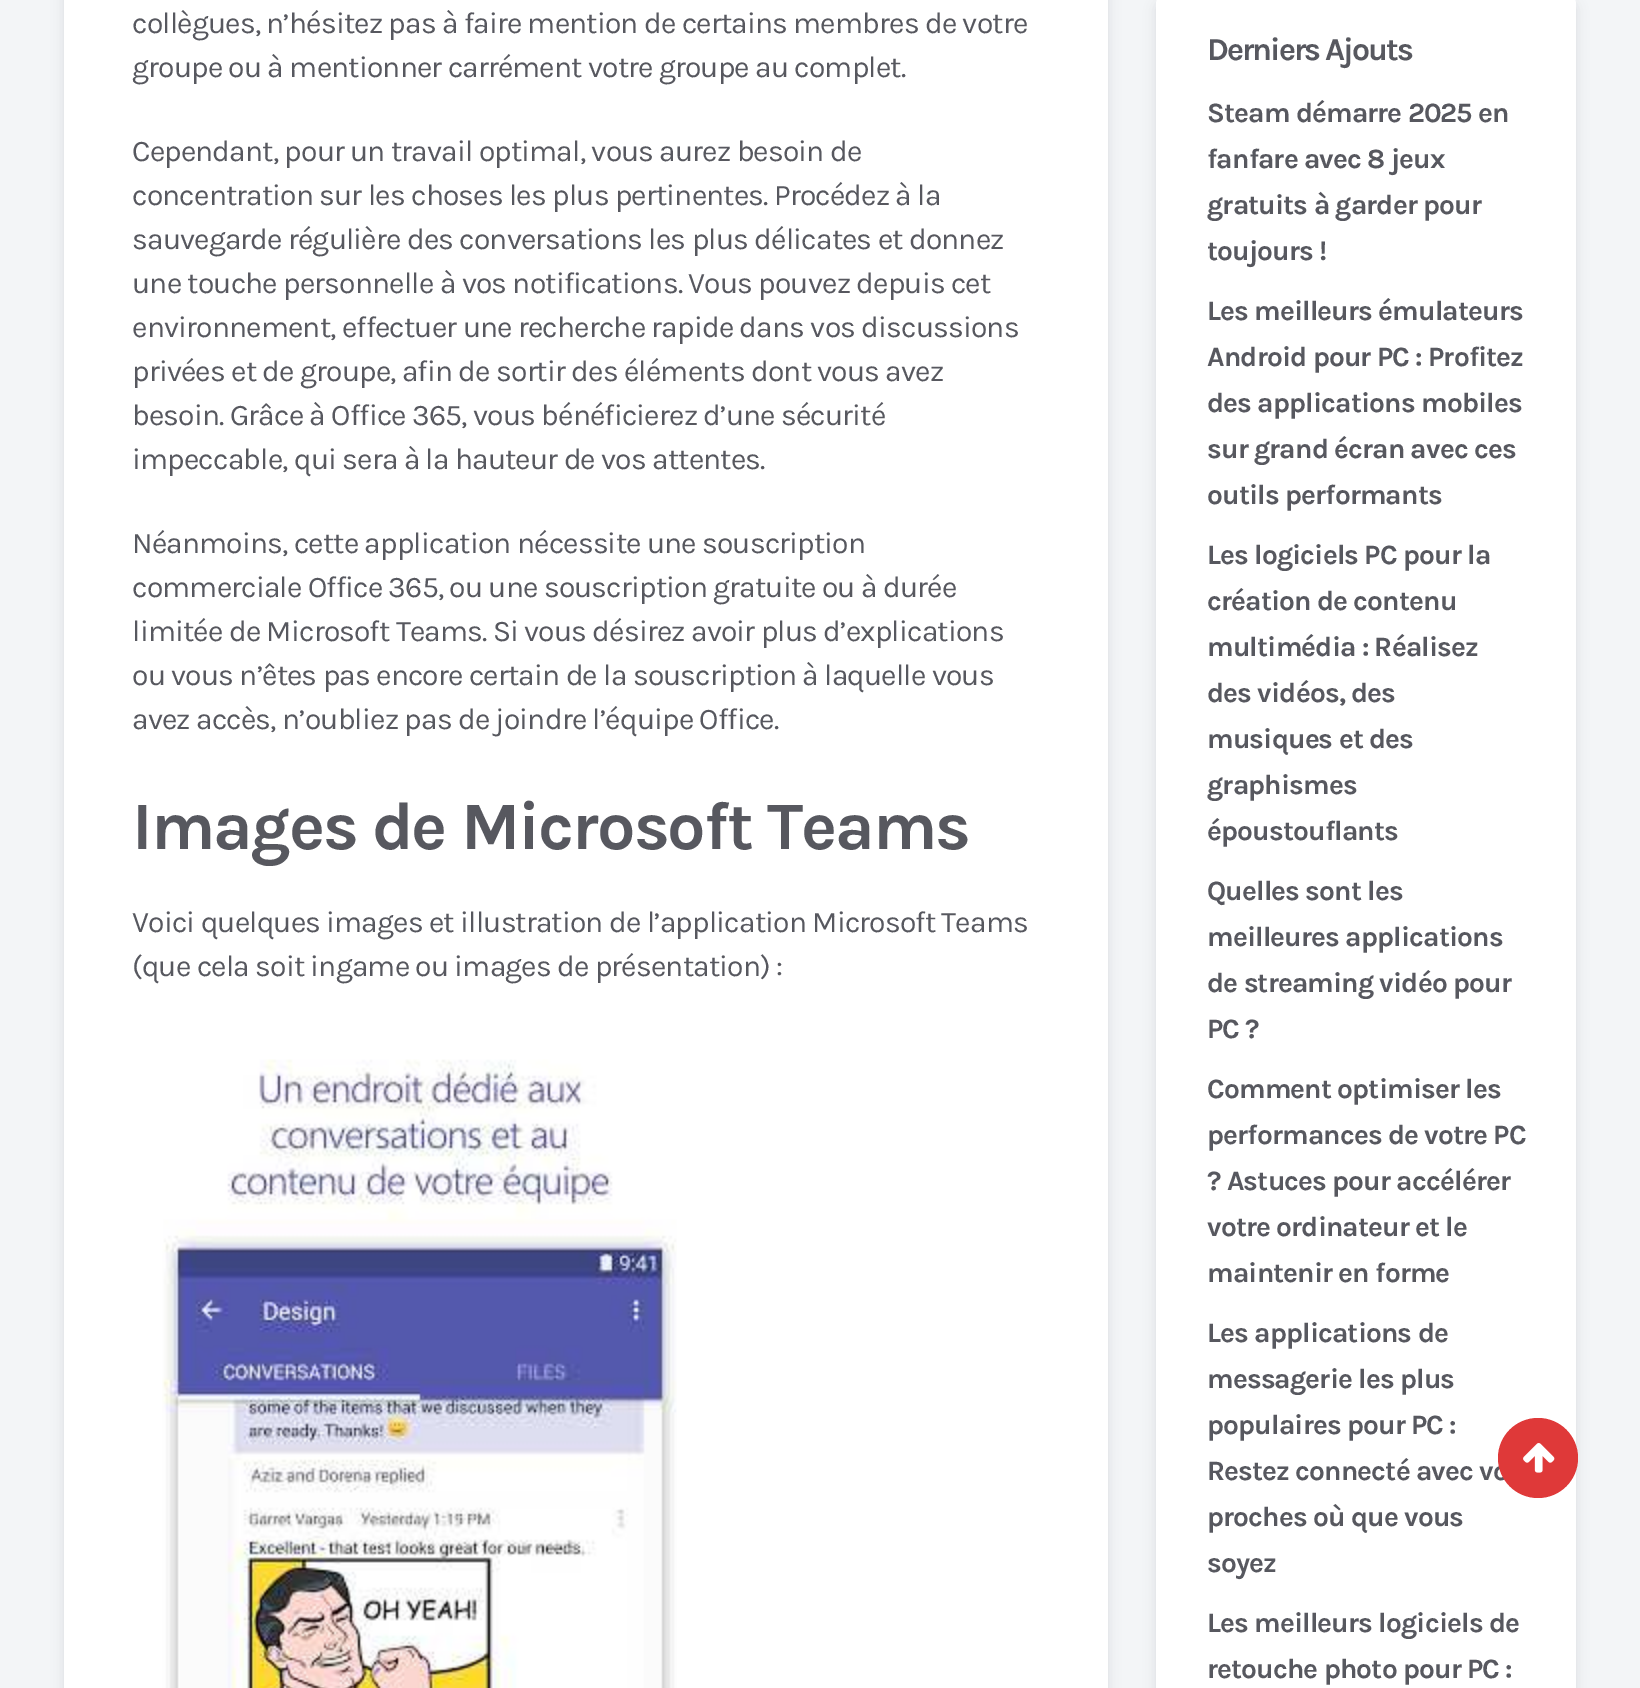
%!PS
<< /PageSize [1640 1688] /PageUsesTransparency true >> setpagedevice
/mt/moveto load def
/fl/fill load def
/co { dup -16 bitshift 255 div exch dup -8 bitshift 255 and 255 div exch 255 and 255 div setrgbcolor } def
/fn { [ exch dup neg 0 0 3 -1 roll 0 0 ] selectfont } def
/bx { co rectfill } def
/al { dup .setfillconstantalpha .setstrokeconstantalpha } def
/ci { newpath 0 360 arc closepath } def
/rr { 5 dict begin { /r /h /w /y /x } { exch def } forall
  x r add y moveto x w add y 2 copy h add r arct x w add y h add x 1 index r arct
  x y h add x y r arct x y 2 copy exch w add exch r arct closepath end } def
/sh { 12 dict begin { /a /b /q /h /w /y /x } { exch def } forall gsave /was 0 def
  9 -2 -9 { dup b mul 4 div /e exch def 1 sub .425 mul 2.718 exch exp 1 add a .99 .min exch div /now exch def
    1 1 now sub 1 was sub div sub al /was now def
    w h .min e 2 mul add 0 gt { x e sub y e sub w e 2 mul add h e 2 mul add
      q e add b .6 mul add w h .min 2 div e add .min 0 .max rr fill } if } for grestore end } def
/im { 5 dict begin { /h /w /y /x /name } { exch def } forall
  gsave x y translate w h scale
  w h 8 [w 0 0 h 0 0] name (r) file false 3 colorimage grestore end } def
0 .pushpdf14devicefilter
0 1688 translate 1 -1 scale
4 setmiterlimit
0 0 1640 1688 16#F3F5F7 bx
16#57585F co
64 -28 1044 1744 10 6 .15 sh
64 0 1044 1688 16#FFFFFF bx
(media/1.raw) 162 1059 515 629 im
16#57585F co
1156 0 420 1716 10 6 .15 sh
16#FFFFFF co
1156 -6 420 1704 10 rr fl
/Karla-Regular 30 fn
16#57585F co
132 33 mt -.87 0 (collègues, n’hésitez pas à faire mention de certains membres de votre) ashow
132 77 mt -.87 0 (groupe ou à mentionner carrément votre groupe au complet.) ashow
132 161 mt -.87 0 (Cependant, pour un travail optimal, vous aurez besoin de) ashow
132 205 mt -.87 0 (concentration sur les choses les plus pertinentes. Procédez à la) ashow
132 249 mt -.87 0 (sauvegarde régulière des conversations les plus délicates et donnez) ashow
132 293 mt -.87 0 (une touche personnelle à vos notifications. Vous pouvez depuis cet) ashow
132 337 mt -.87 0 (environnement, effectuer une recherche rapide dans vos discussions) ashow
132 381 mt -.87 0 (privées et de groupe, afin de sortir des éléments dont vous avez) ashow
132 425 mt -.87 0 (besoin. Grâce à Office 365, vous bénéficierez d’une sécurité) ashow
132 469 mt -.87 0 (impeccable, qui sera à la hauteur de vos attentes.) ashow
132 553 mt -.87 0 (Néanmoins, cette application nécessite une souscription) ashow
132 597 mt -.87 0 (commerciale Office 365, ou une souscription gratuite ou à durée) ashow
132 641 mt -.87 0 (limitée de Microsoft Teams. Si vous désirez avoir plus d’explications) ashow
132 685 mt -.87 0 (ou vous n’êtes pas encore certain de la souscription à laquelle vous) ashow
132 729 mt -.87 0 (avez accès, n’oubliez pas de joindre l’équipe Office.) ashow
/Karla-Bold 68 fn
132 849 mt -2 0 (Images de Microsoft Teams) ashow
/Karla-Regular 30 fn
132 932 mt -.87 0 (Voici quelques images et illustration de l’application Microsoft Teams) ashow
132 976 mt -.87 0 (\(que cela soit ingame ou images de présentation\) :) ashow
/Karla-Bold 32 fn
1207 60 mt -2 0 (Derniers Ajouts) ashow
/Karla-Bold 28 fn
1207 122 mt -.87 0 (Steam démarre 2025 en) ashow
1207 168 mt -.87 0 (fanfare avec 8 jeux) ashow
1207 214 mt -.87 0 (gratuits à garder pour) ashow
1207 260 mt -.87 0 (toujours !) ashow
1207 320 mt -.87 0 (Les meilleurs émulateurs) ashow
1207 366 mt -.87 0 (Android pour PC : Profitez) ashow
1207 412 mt -.87 0 (des applications mobiles) ashow
1207 458 mt -.87 0 (sur grand écran avec ces) ashow
1207 504 mt -.87 0 (outils performants) ashow
1207 564 mt -.87 0 (Les logiciels PC pour la) ashow
1207 610 mt -.87 0 (création de contenu) ashow
1207 656 mt -.87 0 (multimédia : Réalisez) ashow
1207 702 mt -.87 0 (des vidéos, des) ashow
1207 748 mt -.87 0 (musiques et des) ashow
1207 794 mt -.87 0 (graphismes) ashow
1207 840 mt -.87 0 (époustouflants) ashow
1207 900 mt -.87 0 (Quelles sont les) ashow
1207 946 mt -.87 0 (meilleures applications) ashow
1207 992 mt -.87 0 (de streaming vidéo pour) ashow
1207 1038 mt -.87 0 (PC ?) ashow
1207 1098 mt -.87 0 (Comment optimiser les) ashow
1207 1144 mt -.87 0 (performances de votre PC) ashow
1207 1190 mt -.87 0 (? Astuces pour accélérer) ashow
1207 1236 mt -.87 0 (votre ordinateur et le) ashow
1207 1282 mt -.87 0 (maintenir en forme) ashow
1207 1342 mt -.87 0 (Les applications de) ashow
1207 1388 mt -.87 0 (messagerie les plus) ashow
1207 1434 mt -.87 0 (populaires pour PC :) ashow
1207 1480 mt -.87 0 (Restez connecté avec vo) ashow
1207 1526 mt -.87 0 (proches où que vous) ashow
1207 1572 mt -.87 0 (soyez) ashow
1207 1632 mt -.87 0 (Les meilleurs logiciels de) ashow
1207 1678 mt -.87 0 (retouche photo pour PC :) ashow
16#DF3939 co
1538 1458 40 ci fl
(media/2.raw) 1523 1443 32 30 im
.poppdf14devicefilter showpage
